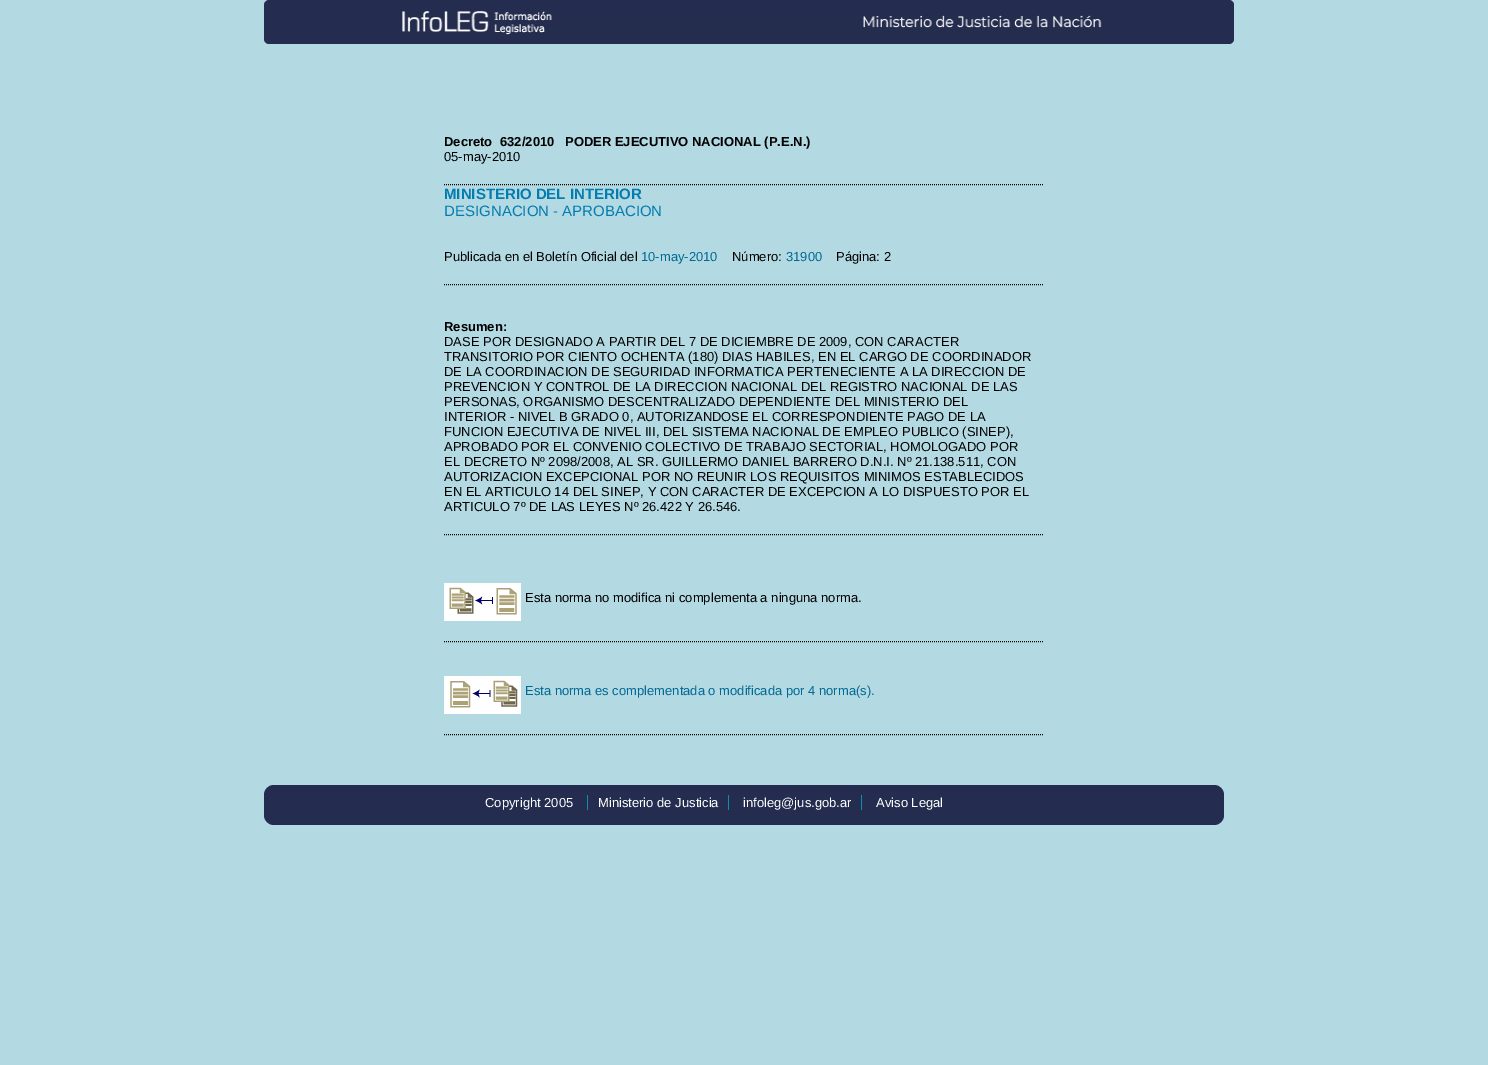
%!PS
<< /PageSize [1488 1065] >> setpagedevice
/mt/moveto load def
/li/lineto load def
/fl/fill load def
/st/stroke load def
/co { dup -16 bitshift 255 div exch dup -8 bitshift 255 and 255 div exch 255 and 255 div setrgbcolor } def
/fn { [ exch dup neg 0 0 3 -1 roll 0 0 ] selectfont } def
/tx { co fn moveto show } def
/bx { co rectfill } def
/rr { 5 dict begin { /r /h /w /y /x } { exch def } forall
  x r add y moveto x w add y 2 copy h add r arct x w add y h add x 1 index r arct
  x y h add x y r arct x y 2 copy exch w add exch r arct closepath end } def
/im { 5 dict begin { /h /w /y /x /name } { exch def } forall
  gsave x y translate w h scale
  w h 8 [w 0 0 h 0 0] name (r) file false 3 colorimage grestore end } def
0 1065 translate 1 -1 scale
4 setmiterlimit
0 0 1488 1065 16#B3D9E2 bx
16#242C4F co
264 0 970 44 5 rr fl
(media/1.raw) 402 11 700 24 im
16#000000 co
[1 1] 0 setdash
444 184.5 mt 1044 184.5 li st
444 284.5 mt 1044 284.5 li st
444 534.5 mt 1044 534.5 li st
444 641.5 mt 1044 641.5 li st
(media/2.raw) 444 583 77 38 im
444 734.5 mt 1044 734.5 li st
(media/3.raw) 444 676 77 38 im
16#242C4F co
264 785 960 40 10 rr fl
587 795 1 15 16#0D8EAE bx
728 795 1 15 16#0D8EAE bx
861 795 1 15 16#0D8EAE bx
(Decreto) 444 146 /LiberationSans-Bold 13 16#000000 tx
(632/2010) 500 146 /LiberationSans-Bold 13 16#000000 tx
(PODER EJECUTIVO NACIONAL \(P.E.N.\)) 565 146 /LiberationSans-Bold 13 16#000000 tx
(05-may-2010) 444 161 /LiberationSans-Regular 13 16#000000 tx
(MINISTERIO DEL INTERIOR) 444 199 /LiberationSans-Bold 15 16#037DB0 tx
(DESIGNACION - APROBACION) 444 216 /LiberationSans-Regular 15 16#037DB0 tx
(Publicada en el Boletín Oficial del) 444 261 /LiberationSans-Regular 13 16#000000 tx
(10-may-2010) 641 261 /LiberationSans-Regular 13 16#016994 tx
(Número:) 732 261 /LiberationSans-Regular 13 16#000000 tx
(31900) 786 261 /LiberationSans-Regular 13 16#016994 tx
(Página: 2) 836 261 /LiberationSans-Regular 13 16#000000 tx
(Resumen:) 444 331 /LiberationSans-Bold 13 16#000000 tx
(DASE POR DESIGNADO A PARTIR DEL 7 DE DICIEMBRE DE 2009, CON CARACTER) 444 346 /LiberationSans-Regular 13 16#000000 tx
(TRANSITORIO POR CIENTO OCHENTA \(180\) DIAS HABILES, EN EL CARGO DE COORDINADOR) 444 361 /LiberationSans-Regular 13 16#000000 tx
(DE LA COORDINACION DE SEGURIDAD INFORMATICA PERTENECIENTE A LA DIRECCION DE) 444 376 /LiberationSans-Regular 13 16#000000 tx
(PREVENCION Y CONTROL DE LA DIRECCION NACIONAL DEL REGISTRO NACIONAL DE LAS) 444 391 /LiberationSans-Regular 13 16#000000 tx
(PERSONAS, ORGANISMO DESCENTRALIZADO DEPENDIENTE DEL MINISTERIO DEL) 444 406 /LiberationSans-Regular 13 16#000000 tx
(INTERIOR - NIVEL B GRADO 0, AUTORIZANDOSE EL CORRESPONDIENTE PAGO DE LA) 444 421 /LiberationSans-Regular 13 16#000000 tx
(FUNCION EJECUTIVA DE NIVEL III, DEL SISTEMA NACIONAL DE EMPLEO PUBLICO \(SINEP\),) 444 436 /LiberationSans-Regular 13 16#000000 tx
(APROBADO POR EL CONVENIO COLECTIVO DE TRABAJO SECTORIAL, HOMOLOGADO POR) 444 451 /LiberationSans-Regular 13 16#000000 tx
(EL DECRETO Nº 2098/2008, AL SR. GUILLERMO DANIEL BARRERO D.N.I. Nº 21.138.511, CON) 444 466 /LiberationSans-Regular 13 16#000000 tx
(AUTORIZACION EXCEPCIONAL POR NO REUNIR LOS REQUISITOS MINIMOS ESTABLECIDOS) 444 481 /LiberationSans-Regular 13 16#000000 tx
(EN EL ARTICULO 14 DEL SINEP, Y CON CARACTER DE EXCEPCION A LO DISPUESTO POR EL) 444 496 /LiberationSans-Regular 13 16#000000 tx
(ARTICULO 7º DE LAS LEYES Nº 26.422 Y 26.546.) 444 511 /LiberationSans-Regular 13 16#000000 tx
(Esta norma no modifica ni complementa a ninguna norma.) 525 602 /LiberationSans-Regular 13 16#000000 tx
(Esta norma es complementada o modificada por 4 norma\(s\).) 525 695 /LiberationSans-Regular 13 16#016994 tx
(Copyright 2005) 485 807 /LiberationSans-Regular 13 16#FFFFFF tx
(Ministerio de Justicia) 598 807 /LiberationSans-Regular 13 16#FFFFFF tx
(infoleg@jus.gob.ar) 743 807 /LiberationSans-Regular 13 16#FFFFFF tx
(Aviso Legal) 876 807 /LiberationSans-Regular 13 16#FFFFFF tx
showpage
